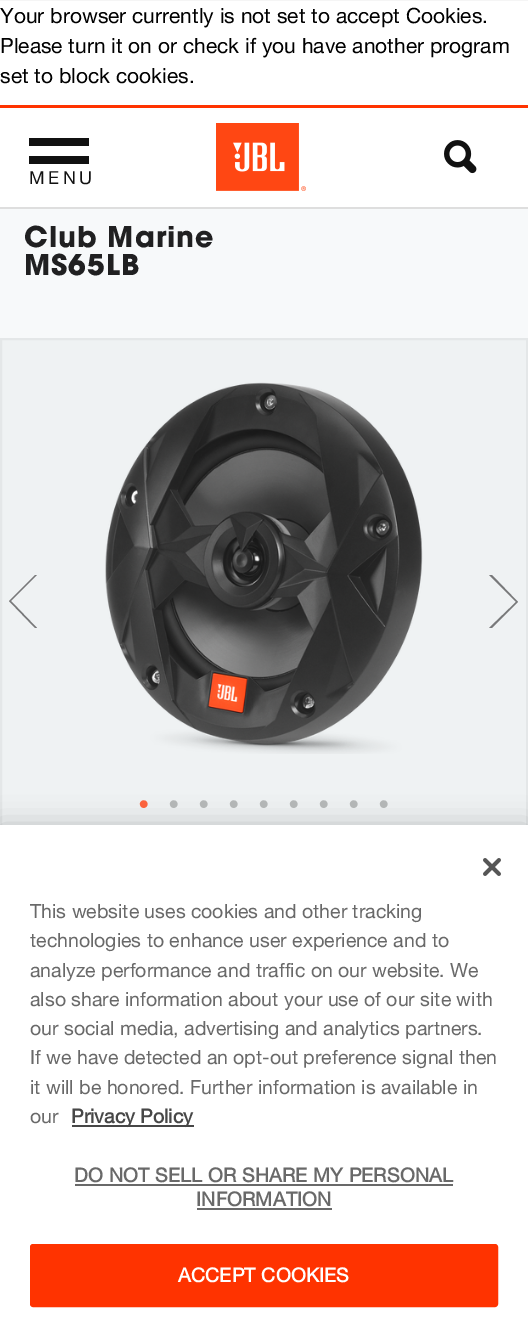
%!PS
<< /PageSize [528 1321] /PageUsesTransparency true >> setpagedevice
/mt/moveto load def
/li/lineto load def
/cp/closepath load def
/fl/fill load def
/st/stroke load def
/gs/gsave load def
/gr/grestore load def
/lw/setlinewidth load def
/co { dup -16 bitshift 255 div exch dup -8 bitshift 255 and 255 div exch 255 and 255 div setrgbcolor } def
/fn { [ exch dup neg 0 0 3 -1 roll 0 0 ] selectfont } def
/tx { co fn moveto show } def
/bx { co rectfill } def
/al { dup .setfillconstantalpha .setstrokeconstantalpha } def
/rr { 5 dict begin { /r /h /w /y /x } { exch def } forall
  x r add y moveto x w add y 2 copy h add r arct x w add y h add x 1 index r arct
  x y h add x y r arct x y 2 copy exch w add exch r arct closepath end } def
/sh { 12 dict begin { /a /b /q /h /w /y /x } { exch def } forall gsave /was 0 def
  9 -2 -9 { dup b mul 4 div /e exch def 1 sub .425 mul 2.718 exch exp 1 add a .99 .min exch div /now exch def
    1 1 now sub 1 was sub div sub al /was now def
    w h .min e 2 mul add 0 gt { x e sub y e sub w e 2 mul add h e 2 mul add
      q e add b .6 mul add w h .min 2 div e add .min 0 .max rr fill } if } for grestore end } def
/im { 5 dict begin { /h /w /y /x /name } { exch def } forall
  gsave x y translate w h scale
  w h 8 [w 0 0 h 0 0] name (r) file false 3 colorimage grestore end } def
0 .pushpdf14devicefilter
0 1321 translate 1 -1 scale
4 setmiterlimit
0 0 528 1321 16#FFFFFF bx
0 0 528 1 16#F5F5F5 bx
0 105 528 3 16#FF3300 bx
0 207 528 2 16#DEDEDE bx
(media/1.raw) 216 123 90 68 im
(media/2.raw) 444 140 33 34 im
29 138 60 8 16#111111 bx
29 156 60 8 16#111111 bx
0 209 528 129 16#F7F9FA bx
2 340 524 485 16#EFF2F3 bx
16#E4E7E8 co
2 lw
1 339 526 586 rectstroke
16#78797A co
37 575 mt 11 601 li 37 628 li 35 628 li 9 601 li 35 575 li cp eofill
(media/3.raw) 105 382 318 372 im
489 628 mt 516 602 li 489 575 li 492 575 li 518 602 li 492 628 li cp eofill
16#000000 co
0 825 528 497 0 13.5 .2 sh
0 825 528 496 16#FFFFFF bx
(media/4.raw) 483 858 18 18 im
72 1125 122 2 16#474747 bx
75 1184 378 2 16#696969 bx
197 1208 135 2 16#696969 bx
16#FF3300 co
31 1245 466 61 2 rr gs fl gr
st
(Your browser currently is not set to accept Cookies.) 0 23 /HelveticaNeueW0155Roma-Regular 21 16#000000 tx
(Please turn it on or check if you have another program) 0 53 /HelveticaNeueW0155Roma-Regular 21 16#000000 tx
(set to block cookies.) 0 83 /HelveticaNeueW0155Roma-Regular 21 16#000000 tx
/HelveticaNeueW0155Roma-Regular 18 fn
16#111111 co
29 184 mt 3.5 0 (MENU) ashow
/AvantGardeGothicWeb-Bold 28.5 fn
16#202021 co
24 247 mt 1 0 (Club Marine) ashow
24 275 mt 1 0 (MS65LB) ashow
(•) 138 815 /LiberationSerif-Regular 33 16#FB633D tx
(•) 168 815 /LiberationSerif-Regular 33 16#B3B6B6 tx
(•) 198 815 /LiberationSerif-Regular 33 16#B3B6B6 tx
(•) 228 815 /LiberationSerif-Regular 33 16#B3B6B6 tx
(•) 258 815 /LiberationSerif-Regular 33 16#B3B6B6 tx
(•) 288 815 /LiberationSerif-Regular 33 16#B3B6B6 tx
(•) 318 815 /LiberationSerif-Regular 33 16#B3B6B6 tx
(•) 348 815 /LiberationSerif-Regular 33 16#B3B6B6 tx
(•) 378 815 /LiberationSerif-Regular 33 16#B3B6B6 tx
(This website uses cookies and other tracking) 30 918 /HelveticaNeueW0155Roma-Regular 19.5 16#696969 tx
(technologies to enhance user experience and to) 30 947 /HelveticaNeueW0155Roma-Regular 19.5 16#696969 tx
(analyze performance and traffic on our website. We) 30 977 /HelveticaNeueW0155Roma-Regular 19.5 16#696969 tx
(also share information about your use of our site with) 30 1006 /HelveticaNeueW0155Roma-Regular 19.5 16#696969 tx
(our social media, advertising and analytics partners.) 30 1035 /HelveticaNeueW0155Roma-Regular 19.5 16#696969 tx
(If we have detected an opt-out preference signal then) 30 1064 /HelveticaNeueW0155Roma-Regular 19.5 16#696969 tx
(it will be honored. Further information is available in) 30 1094 /HelveticaNeueW0155Roma-Regular 19.5 16#696969 tx
(our) 30 1123 /HelveticaNeueW0155Roma-Regular 19.5 16#696969 tx
(Privacy Policy) 71 1123 /HelveticaNeueW0155Roma-Bold 19.5 16#474747 tx
16#696969 co
74 1182 mt .2 0 (DO NOT SELL OR SHARE MY PERSONAL) ashow
196 1206 mt .2 0 (INFORMATION) ashow
16#FFFFFF co
178 1282 mt .2 0 (ACCEPT COOKIES) ashow
.poppdf14devicefilter showpage
